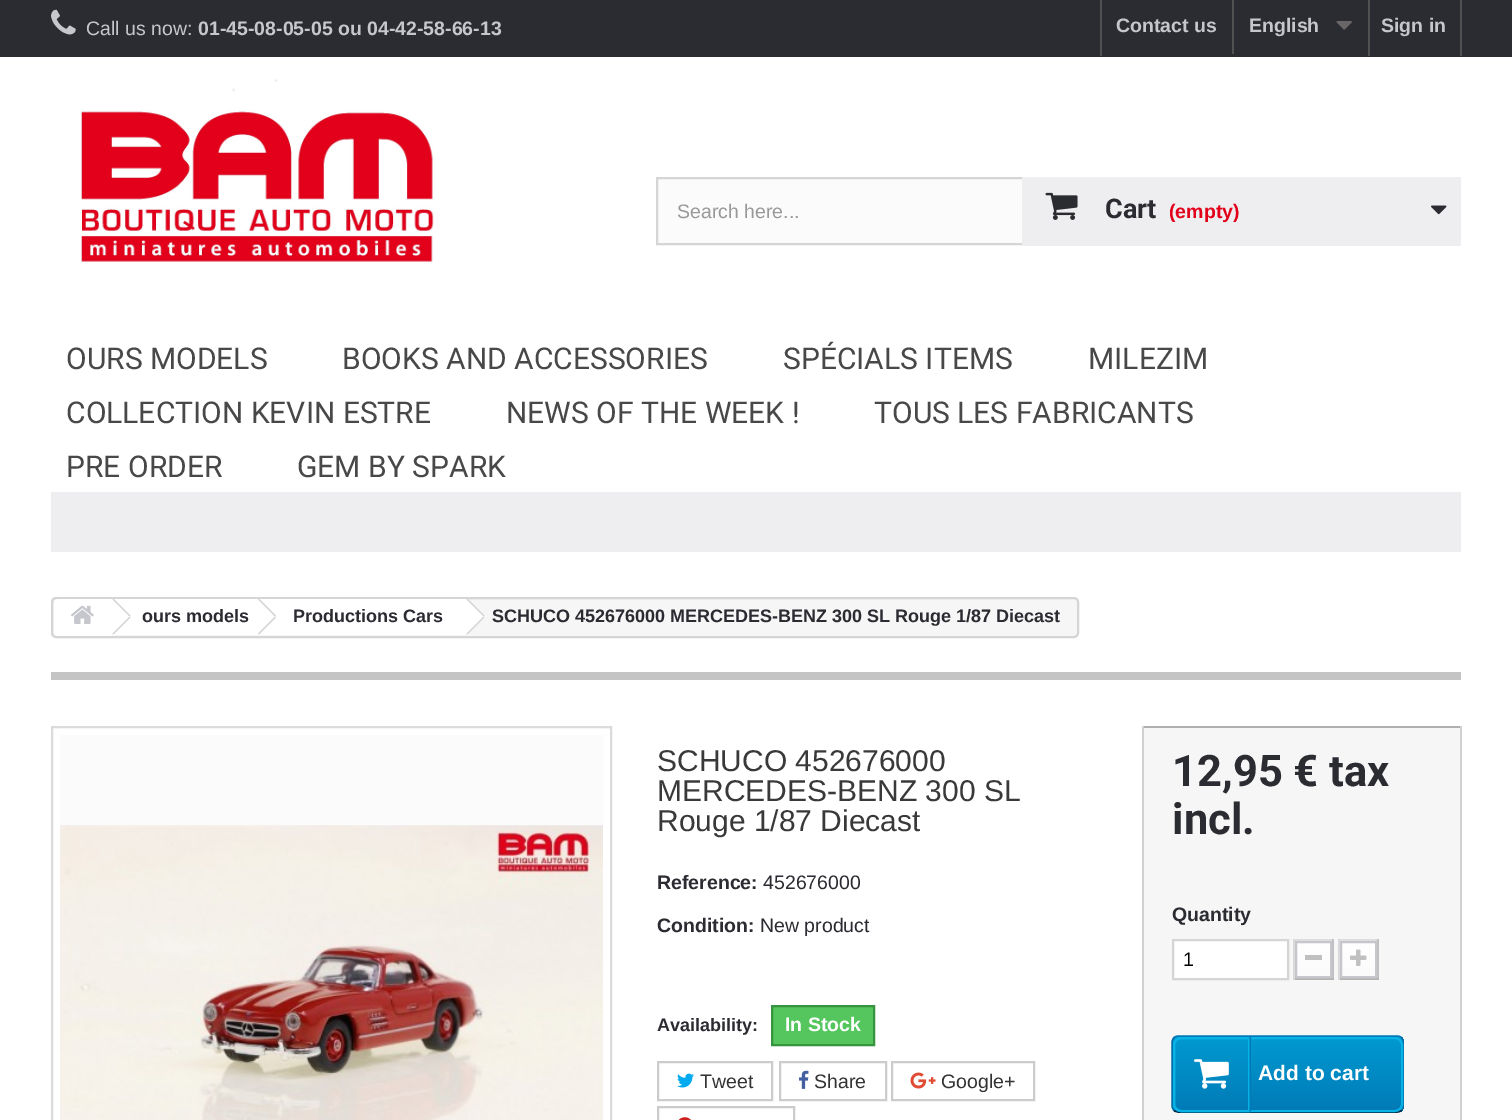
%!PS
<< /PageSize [1512 1120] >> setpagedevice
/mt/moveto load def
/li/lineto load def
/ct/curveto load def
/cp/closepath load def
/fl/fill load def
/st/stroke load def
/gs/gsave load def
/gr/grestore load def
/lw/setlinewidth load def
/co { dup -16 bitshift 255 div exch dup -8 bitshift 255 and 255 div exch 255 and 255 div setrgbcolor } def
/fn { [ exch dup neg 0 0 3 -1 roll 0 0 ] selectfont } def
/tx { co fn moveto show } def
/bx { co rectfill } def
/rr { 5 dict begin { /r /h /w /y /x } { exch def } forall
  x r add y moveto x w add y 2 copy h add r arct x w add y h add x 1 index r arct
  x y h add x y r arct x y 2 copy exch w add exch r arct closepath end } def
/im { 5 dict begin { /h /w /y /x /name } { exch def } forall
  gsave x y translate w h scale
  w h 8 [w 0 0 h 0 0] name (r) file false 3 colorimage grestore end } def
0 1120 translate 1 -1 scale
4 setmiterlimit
0 0 1512 1120 16#FFFFFF bx
0 0 1512 57 16#2B2B32 bx
(media/1.raw) 51 9 25 26 im
1100 0 2 56 16#515151 bx
1232 0 2 54 16#515151 bx
(media/2.raw) 1336 21 16 9 im
1460 0 2 56 16#515151 bx
1368 0 2 56 16#515151 bx
(media/3.raw) 81 79 353 183 im
658 179 364 64 16#FBFBFB bx
16#D6D4D4 co
2 lw
657 178 439 66 rectstroke
1022 177 439 69 16#EEEEF0 bx
(media/4.raw) 1045 192 33 28 im
(media/5.raw) 1431 205 16 10 im
51 492 1410 60 16#EEEEF0 bx
16#F6F6F6 co
52 598 1026 39 4 rr gs fl gr
16#D6D4D4 co
st
16#FFFFFF co
59 599 mt 111 599 li 111 636 li 59 636 li 56 636 54 634 54 631 ct 54 604 li 54 601 56 599 59 599 ct cp fl
(media/6.raw) 71 605 23 19 im
111 599 149 36 16#FFFFFF bx
16#D6D4D4 co
113.5 598.5 mt 130.5 615.5 li 129.5 616.5 li 112.5 599.5 li cp fl
129.5 616.5 mt 130.5 617.5 li 113.5 634.5 li 112.5 633.5 li cp fl
16#FFFFFF co
275 599.5 mt 274.5 599 li 271.5 599 li 271 599.5 li 256 614.5 li 255 615.5 255 617.5 256 618.5 ct 271 633.5 li 272 634.5 274 634.5 275 633.5 ct 290 618.5 li 291 617.5 291 615.5 290 614.5 ct cp fl
260 599 205 36 16#FFFFFF bx
16#D6D4D4 co
259 598.5 mt 276 615.5 li 275 616.5 li 258 599.5 li cp fl
275 616.5 mt 276 617.5 li 259 634.5 li 258 633.5 li cp fl
16#FFFFFF co
468.5 599.5 mt 468 599 li 465 599 li 464.5 599.5 li 449.5 614.5 li 448.5 615.5 448.5 617.5 449.5 618.5 ct 464.5 633.5 li 465.5 634.5 467.5 634.5 468.5 633.5 ct 483.5 618.5 li 485 617.5 485 615.5 483.5 614.5 ct cp fl
16#D6D4D4 co
467.5 598.5 mt 484.5 615.5 li 483.5 616.5 li 466.5 599.5 li cp fl
483.5 616.5 mt 484.5 617.5 li 467.5 634.5 li 466.5 633.5 li cp fl
51 672 1410 8 16#C4C4C4 bx
16#DBDBDB co
52 727 559 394 rectstroke
60 735 543 90 16#FBFBFB bx
(media/7.raw) 60 825 543 295 im
16#55C65E co
772 1006 mt 874 1006 li 874 1045 li 772 1045 li cp gs fl gr
16#36943E co
st
16#CCCCCC co
658 1062 114 38 rectstroke
(media/8.raw) 677 1073 17 15 im
780 1062 106 38 rectstroke
(media/9.raw) 799 1070 10 19 im
892 1062 142 38 rectstroke
(media/10.raw) 910 1072 26 17 im
658 1107 136 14 rectstroke
(media/11.raw) 678 1117 13 3 im
1144 728 316 392 16#F6F6F6 bx
1142 726 319 2 16#B0AFAF bx
1460 726 2 394 16#D2D0D0 bx
1142 726 2 394 16#D2D0D0 bx
16#FFFFFF co
1173 940 mt 1288 940 li 1288 979 li 1173 979 li cp gs fl gr
16#D6D4D4 co
st
1293 939 41 2 16#DEDCDC bx
1332 939 2 41 16#C1BFBF bx
1293 978 41 2 16#B5B4B4 bx
1293 939 2 41 16#DAD8D8 bx
gs 1297 943 mt 1330 943 li 1330 976 li 1297 976 li cp clip newpath
<< /ShadingType 2 /ColorSpace /DeviceRGB /Coords [1313 942 1313 977] /Extend [true true] /Function << /FunctionType 2 /Domain [0 1] /C0 [1 1 1] /C1 [.984 .984 .984] /N 1 >> >> shfill gr
16#C6C7CD co
1296 942 35 35 rectstroke
1305 955 17 5 16#C0C0C0 bx
1338 939 41 2 16#DEDCDC bx
1377 939 2 41 16#C1BFBF bx
1338 978 41 2 16#B5B4B4 bx
1338 939 2 41 16#DAD8D8 bx
gs 1342 943 mt 1375 943 li 1375 976 li 1342 976 li cp clip newpath
<< /ShadingType 2 /ColorSpace /DeviceRGB /Coords [1358 942 1358 977] /Extend [true true] /Function << /FunctionType 2 /Domain [0 1] /C0 [1 1 1] /C1 [.984 .984 .984] /N 1 >> >> shfill gr
16#C6C7CD co
1341 942 35 35 rectstroke
(media/12.raw) 1350 949 17 17 im
gs
1172 1035 232 78 8 rr clip newpath
gs 1172 1037 mt 1404 1037 li 1404 1112 li 1172 1112 li cp clip newpath
<< /ShadingType 2 /ColorSpace /DeviceRGB /Coords [1288 1037 1288 1112] /Extend [true true] /Function << /FunctionType 2 /Domain [0 1] /C0 [0 .604 .816] /C1 [0 .478 .718] /N 1 >> >> shfill gr
gr
16#0079B6 co
1.5 lw
1174 1037.5 mt 1175.5 1036.5 1177 1036 1179 1036 ct 1396.5 1036 li 1398.5 1036 1400 1036.5 1401.5 1037.5 ct st
16#006FA8 co
1401.5 1037.5 mt 1402.5 1039 1403 1040.5 1403 1042.5 ct 1403 1105.5 li 1403 1107.5 1402.5 1109 1401.5 1110.5 ct st
16#012740 co
1401.5 1110.5 mt 1400 1111.5 1398.5 1112 1396.5 1112 ct 1179 1112 li 1177 1112 1175.5 1111.5 1174 1110.5 ct st
16#006FA8 co
1174 1110.5 mt 1173 1109 1172 1107.5 1172 1105.5 ct 1172 1042.5 li 1172 1040.5 1173 1039 1174 1037.5 ct st
16#06B2E6 co
2 lw
1174 1038 228 73 7 rr st
1181 1038 mt 1249 1038 li 1249 1111 li 1181 1111 li 1177 1111 1174 1108 1174 1104 ct 1174 1045 li 1174 1041 1177 1038 1181 1038 ct cp st
(media/13.raw) 1194 1059 35 30 im
(media/14.raw) 1249 1037 2 75 im
(Call us now:) 86 35 /LiberationSans-Regular 19.5 16#C6C7CD tx
(01-45-08-05-05 ou 04-42-58-66-13) 198 35 /LiberationSans-Bold 19.5 16#C6C7CD tx
(Contact us) 1116 32 /LiberationSans-Bold 19.5 16#C6C7CD tx
(English) 1249 32 /LiberationSans-Bold 19.5 16#C6C7CD tx
(Sign in) 1381 32 /LiberationSans-Bold 19.5 16#C6C7CD tx
(Search here...) 677 218 /LiberationSans-Regular 19.5 16#999999 tx
(Cart) 1105 218 /Roboto-Bold 27 16#2B2B32 tx
(\(empty\)) 1169 218 /LiberationSans-Bold 19.5 16#E2001A tx
(OURS MODELS) 66 369 /Roboto-Regular 30 16#484848 tx
(BOOKS AND ACCESSORIES) 342 369 /Roboto-Regular 30 16#484848 tx
(SPÉCIALS ITEMS) 783 369 /Roboto-Regular 30 16#484848 tx
(MILEZIM) 1088 369 /Roboto-Regular 30 16#484848 tx
(COLLECTION KEVIN ESTRE) 66 423 /Roboto-Regular 30 16#484848 tx
(NEWS OF THE WEEK !) 506 423 /Roboto-Regular 30 16#484848 tx
(TOUS LES FABRICANTS) 874 423 /Roboto-Regular 30 16#484848 tx
(PRE ORDER) 66 477 /Roboto-Regular 30 16#484848 tx
(GEM BY SPARK) 297 477 /Roboto-Regular 30 16#484848 tx
(ours models) 142 622 /LiberationSans-Bold 18 16#2B2B32 tx
(Productions Cars) 293 622 /LiberationSans-Bold 18 16#2B2B32 tx
(SCHUCO 452676000 MERCEDES-BENZ 300 SL Rouge 1/87 Diecast) 492 622 /LiberationSans-Bold 18 16#2B2B32 tx
(SCHUCO 452676000) 657 771 /LiberationSans-Regular 30 16#3A3939 tx
(MERCEDES-BENZ 300 SL) 657 801 /LiberationSans-Regular 30 16#3A3939 tx
(Rouge 1/87 Diecast) 657 831 /LiberationSans-Regular 30 16#3A3939 tx
(Reference:) 657 889 /LiberationSans-Bold 19.5 16#2B2B32 tx
(452676000) 763 889 /LiberationSans-Regular 19.5 16#2B2B32 tx
(Condition:) 657 932 /LiberationSans-Bold 19.5 16#2B2B32 tx
(New product) 760 932 /LiberationSans-Regular 19.5 16#2B2B32 tx
(Availability:) 657 1031 /LiberationSans-Bold 18 16#2B2B32 tx
(In Stock) 785 1031 /LiberationSans-Bold 19.5 16#FFFFFF tx
(Tweet) 700 1088 /LiberationSans-Regular 19.5 16#333333 tx
(Share) 814 1088 /LiberationSans-Regular 19.5 16#333333 tx
(Google+) 941 1088 /LiberationSans-Regular 19.5 16#333333 tx
(12,95 € tax) 1172 786 /Roboto-Bold 43.5 16#2B2B32 tx
(incl.) 1172 834 /Roboto-Bold 43.5 16#2B2B32 tx
(Quantity) 1172 921 /LiberationSans-Bold 19.5 16#2B2B32 tx
(1) 1183 966 /LiberationSans-Regular 19.5 16#000000 tx
(Add to cart) 1258 1080 /LiberationSans-Bold 21 16#FFFFFF tx
showpage
